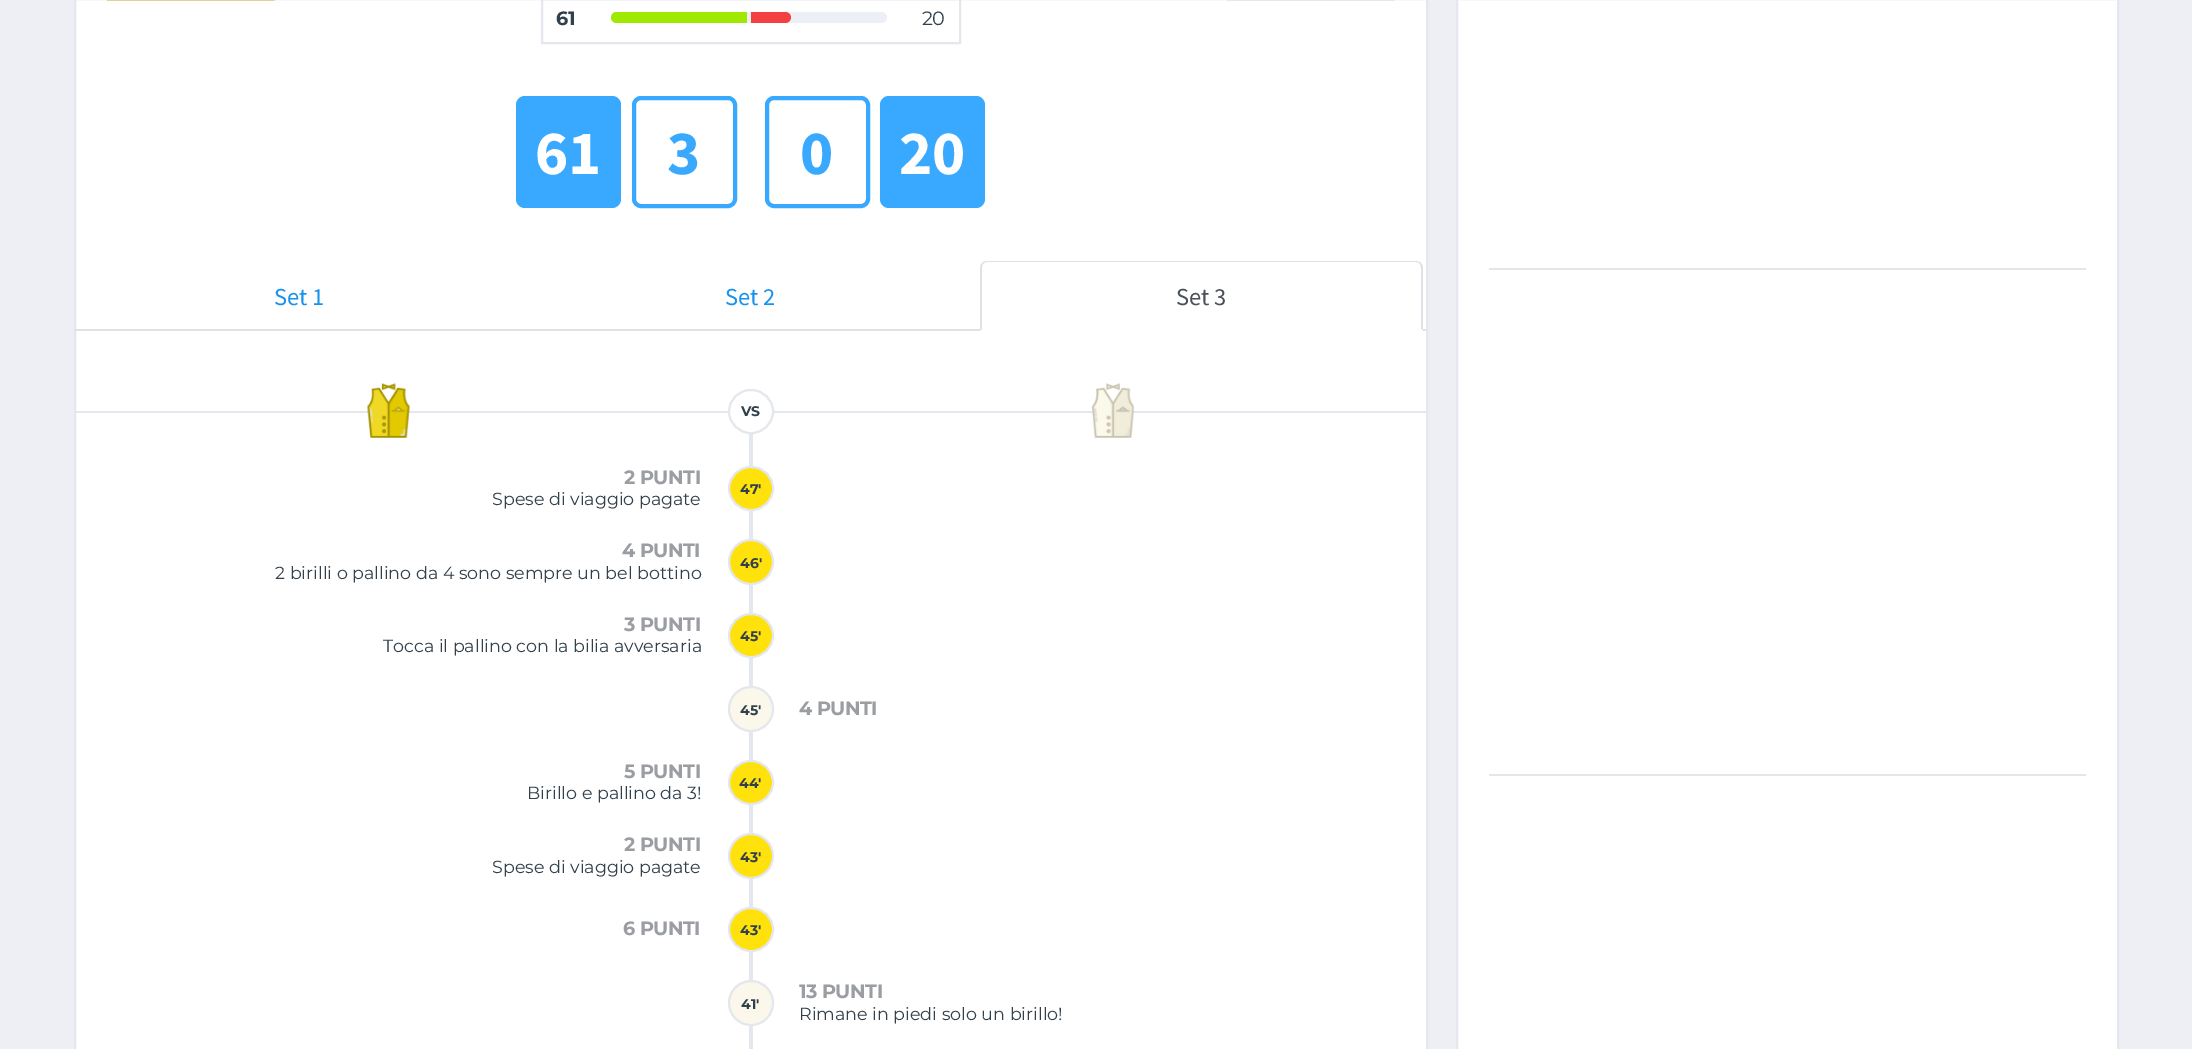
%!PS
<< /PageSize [2192 1049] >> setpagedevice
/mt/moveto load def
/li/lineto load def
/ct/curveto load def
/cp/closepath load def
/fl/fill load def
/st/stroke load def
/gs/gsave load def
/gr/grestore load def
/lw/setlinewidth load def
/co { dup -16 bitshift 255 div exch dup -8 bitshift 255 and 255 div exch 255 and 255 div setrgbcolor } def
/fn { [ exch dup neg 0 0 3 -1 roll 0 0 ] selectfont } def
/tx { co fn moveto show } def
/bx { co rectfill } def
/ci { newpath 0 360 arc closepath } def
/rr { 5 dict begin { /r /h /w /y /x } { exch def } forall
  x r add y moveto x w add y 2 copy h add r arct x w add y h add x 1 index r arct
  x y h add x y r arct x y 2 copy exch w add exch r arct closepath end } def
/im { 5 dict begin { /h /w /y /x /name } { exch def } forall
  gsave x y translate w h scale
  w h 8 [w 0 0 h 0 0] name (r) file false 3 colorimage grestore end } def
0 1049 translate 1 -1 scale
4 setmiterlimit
0 0 2192 1049 16#EDEFF4 bx
16#FFFFFF co
75 -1 mt 1427 -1 li 1427 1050 li 75 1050 li cp gs fl gr
16#E4E7ED co
2 lw
st
(media/1.raw) 106 0 170 1 im
(media/2.raw) 1226 0 170 1 im
542 -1 418 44 rectstroke
16#ECF0F6 co
616.5 12 mt 749 12 li 749 23 li 616.5 23 li 613.5 23 611 20.5 611 17.5 ct 611 14.5 613.5 12 616.5 12 ct cp fl
16#9FE900 co
616.5 12 mt 747 12 li 747 23 li 616.5 23 li 613.5 23 611 20.5 611 17.5 ct 611 14.5 613.5 12 616.5 12 ct cp fl
16#ECF0F6 co
749 12 mt 881.5 12 li 884.5 12 887 14.5 887 17.5 ct 887 20.5 884.5 23 881.5 23 ct 749 23 li cp fl
16#F34141 co
751 12 mt 785.5 12 li 788.5 12 791 14.5 791 17.5 ct 791 20.5 788.5 23 785.5 23 ct 751 23 li cp fl
16#38A9FF co
516 96 105 112 9 rr fl
4 lw
634 98 101 108 7 rr st
767 98 101 108 7 rr st
880 96 105 112 9 rr fl
75 329 1351 2 16#DEE2E6 bx
16#FFFFFF co
987 261 mt 1416 261 li 1420 261 1423 264 1423 268 ct 1423 331 li 980 331 li 980 268 li 980 264 983 261 987 261 ct cp fl
16#DEE2E6 co
987 261 mt 985 261 983 262 982 263 ct 983 264 li 984 263 985 262 987 262 ct 1416 262 li 1418 262 1419 263 1420 264 ct 1421 263 li 1420 262 1418 261 1416 261 ct cp fl
1421 263 mt 1423 266 li 1423 331 li 1421 329 li 1421 268 li 1421 266 1420 265 1420 264 ct cp fl
16#FFFFFF co
1423 331 mt 1421 329 li 982 329 li 980 331 li cp fl
16#DEE2E6 co
980 331 mt 982 329 li 982 268 li 982 267 982 265 983 264 ct 982 263 li 981 264 980 266 980 268 ct cp fl
75 411 1351 2 16#E4E7ED bx
749 389 4 660 16#E4E7ED bx
(media/3.raw) 367 383 43 55 im
16#FFFFFF co
729 390 44 43 21.5 rr gs fl gr
16#E4E7ED co
2 lw
st
(media/4.raw) 1092 383 42 55 im
16#FFE10C co
729 467 44 43 21.5 rr gs fl gr
16#E4E7ED co
st
16#FFE10C co
751 562 22 ci gs fl gr
16#E4E7ED co
st
16#FFE10C co
729 614 44 43 21.5 rr gs fl gr
16#E4E7ED co
st
16#FBF8EB co
751 709 22 ci gs fl gr
16#E4E7ED co
st
16#FFE10C co
729 761 44 43 21.5 rr gs fl gr
16#E4E7ED co
st
16#FFE10C co
751 856 22 ci gs fl gr
16#E4E7ED co
st
16#FFE10C co
729 908 44 43 21.5 rr gs fl gr
16#E4E7ED co
st
16#FBF8EB co
751 1003 22 ci gs fl gr
16#E4E7ED co
st
16#FFFFFF co
1457 -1 mt 2118 -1 li 2118 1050 li 1457 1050 li cp gs fl gr
16#E4E7ED co
st
1489 268 597 2 16#E6E6E6 bx
1489 774 597 2 16#E6E6E6 bx
/Montserrat-Bold 19.25 fn
16#31404B co
556 25 mt -.5 0 (61) ashow
/Montserrat-Regular 19.25 fn
922 25 mt -.5 0 (20) ashow
(61) 535 174 /SourceSansPro-Bold 63 16#FFFFFF tx
(3) 667 174 /SourceSansPro-Bold 63 16#38A9FF tx
(0) 800 174 /SourceSansPro-Bold 63 16#38A9FF tx
(20) 899 174 /SourceSansPro-Bold 63 16#FFFFFF tx
(Set 1) 274 305 /SourceSansPro-Regular 24.5 16#1892ED tx
(Set 2) 725 305 /SourceSansPro-Regular 24.5 16#1892ED tx
(Set 3) 1176 305 /SourceSansPro-Regular 24.5 16#495057 tx
(VS) 741 416 /Montserrat-Bold 14 16#31404B tx
/Montserrat-Bold 19.25 fn
16#9A9DA2 co
624 484 mt -.5 0 (2 PUNTI) ashow
(Spese di viaggio pagate) 492 505 /Montserrat-Regular 17.5 16#31404B tx
(47') 740 494 /Montserrat-Bold 14 16#31404B tx
/Montserrat-Bold 19.25 fn
16#9A9DA2 co
622 557 mt -.5 0 (4 PUNTI) ashow
(2 birilli o pallino da 4 sono sempre un bel bottino) 275 579 /Montserrat-Regular 17.5 16#31404B tx
(46') 740 568 /Montserrat-Bold 14 16#31404B tx
/Montserrat-Bold 19.25 fn
16#9A9DA2 co
624 631 mt -.5 0 (3 PUNTI) ashow
(Tocca il pallino con la bilia avversaria) 383 652 /Montserrat-Regular 17.5 16#31404B tx
(45') 740 641 /Montserrat-Bold 14 16#31404B tx
(45') 740 715 /Montserrat-Bold 14 16#31404B tx
/Montserrat-Bold 19.25 fn
16#9A9DA2 co
799 715 mt -.5 0 (4 PUNTI) ashow
624 778 mt -.5 0 (5 PUNTI) ashow
(Birillo e pallino da 3!) 527 799 /Montserrat-Regular 17.5 16#31404B tx
(44') 739 788 /Montserrat-Bold 14 16#31404B tx
/Montserrat-Bold 19.25 fn
16#9A9DA2 co
624 851 mt -.5 0 (2 PUNTI) ashow
(Spese di viaggio pagate) 492 873 /Montserrat-Regular 17.5 16#31404B tx
(43') 740 862 /Montserrat-Bold 14 16#31404B tx
/Montserrat-Bold 19.25 fn
16#9A9DA2 co
623 935 mt -.5 0 (6 PUNTI) ashow
(43') 740 935 /Montserrat-Bold 14 16#31404B tx
(41') 741 1009 /Montserrat-Bold 14 16#31404B tx
/Montserrat-Bold 19.25 fn
16#9A9DA2 co
799 998 mt -.5 0 (13 PUNTI) ashow
(Rimane in piedi solo un birillo!) 799 1020 /Montserrat-Regular 17.5 16#31404B tx
showpage
